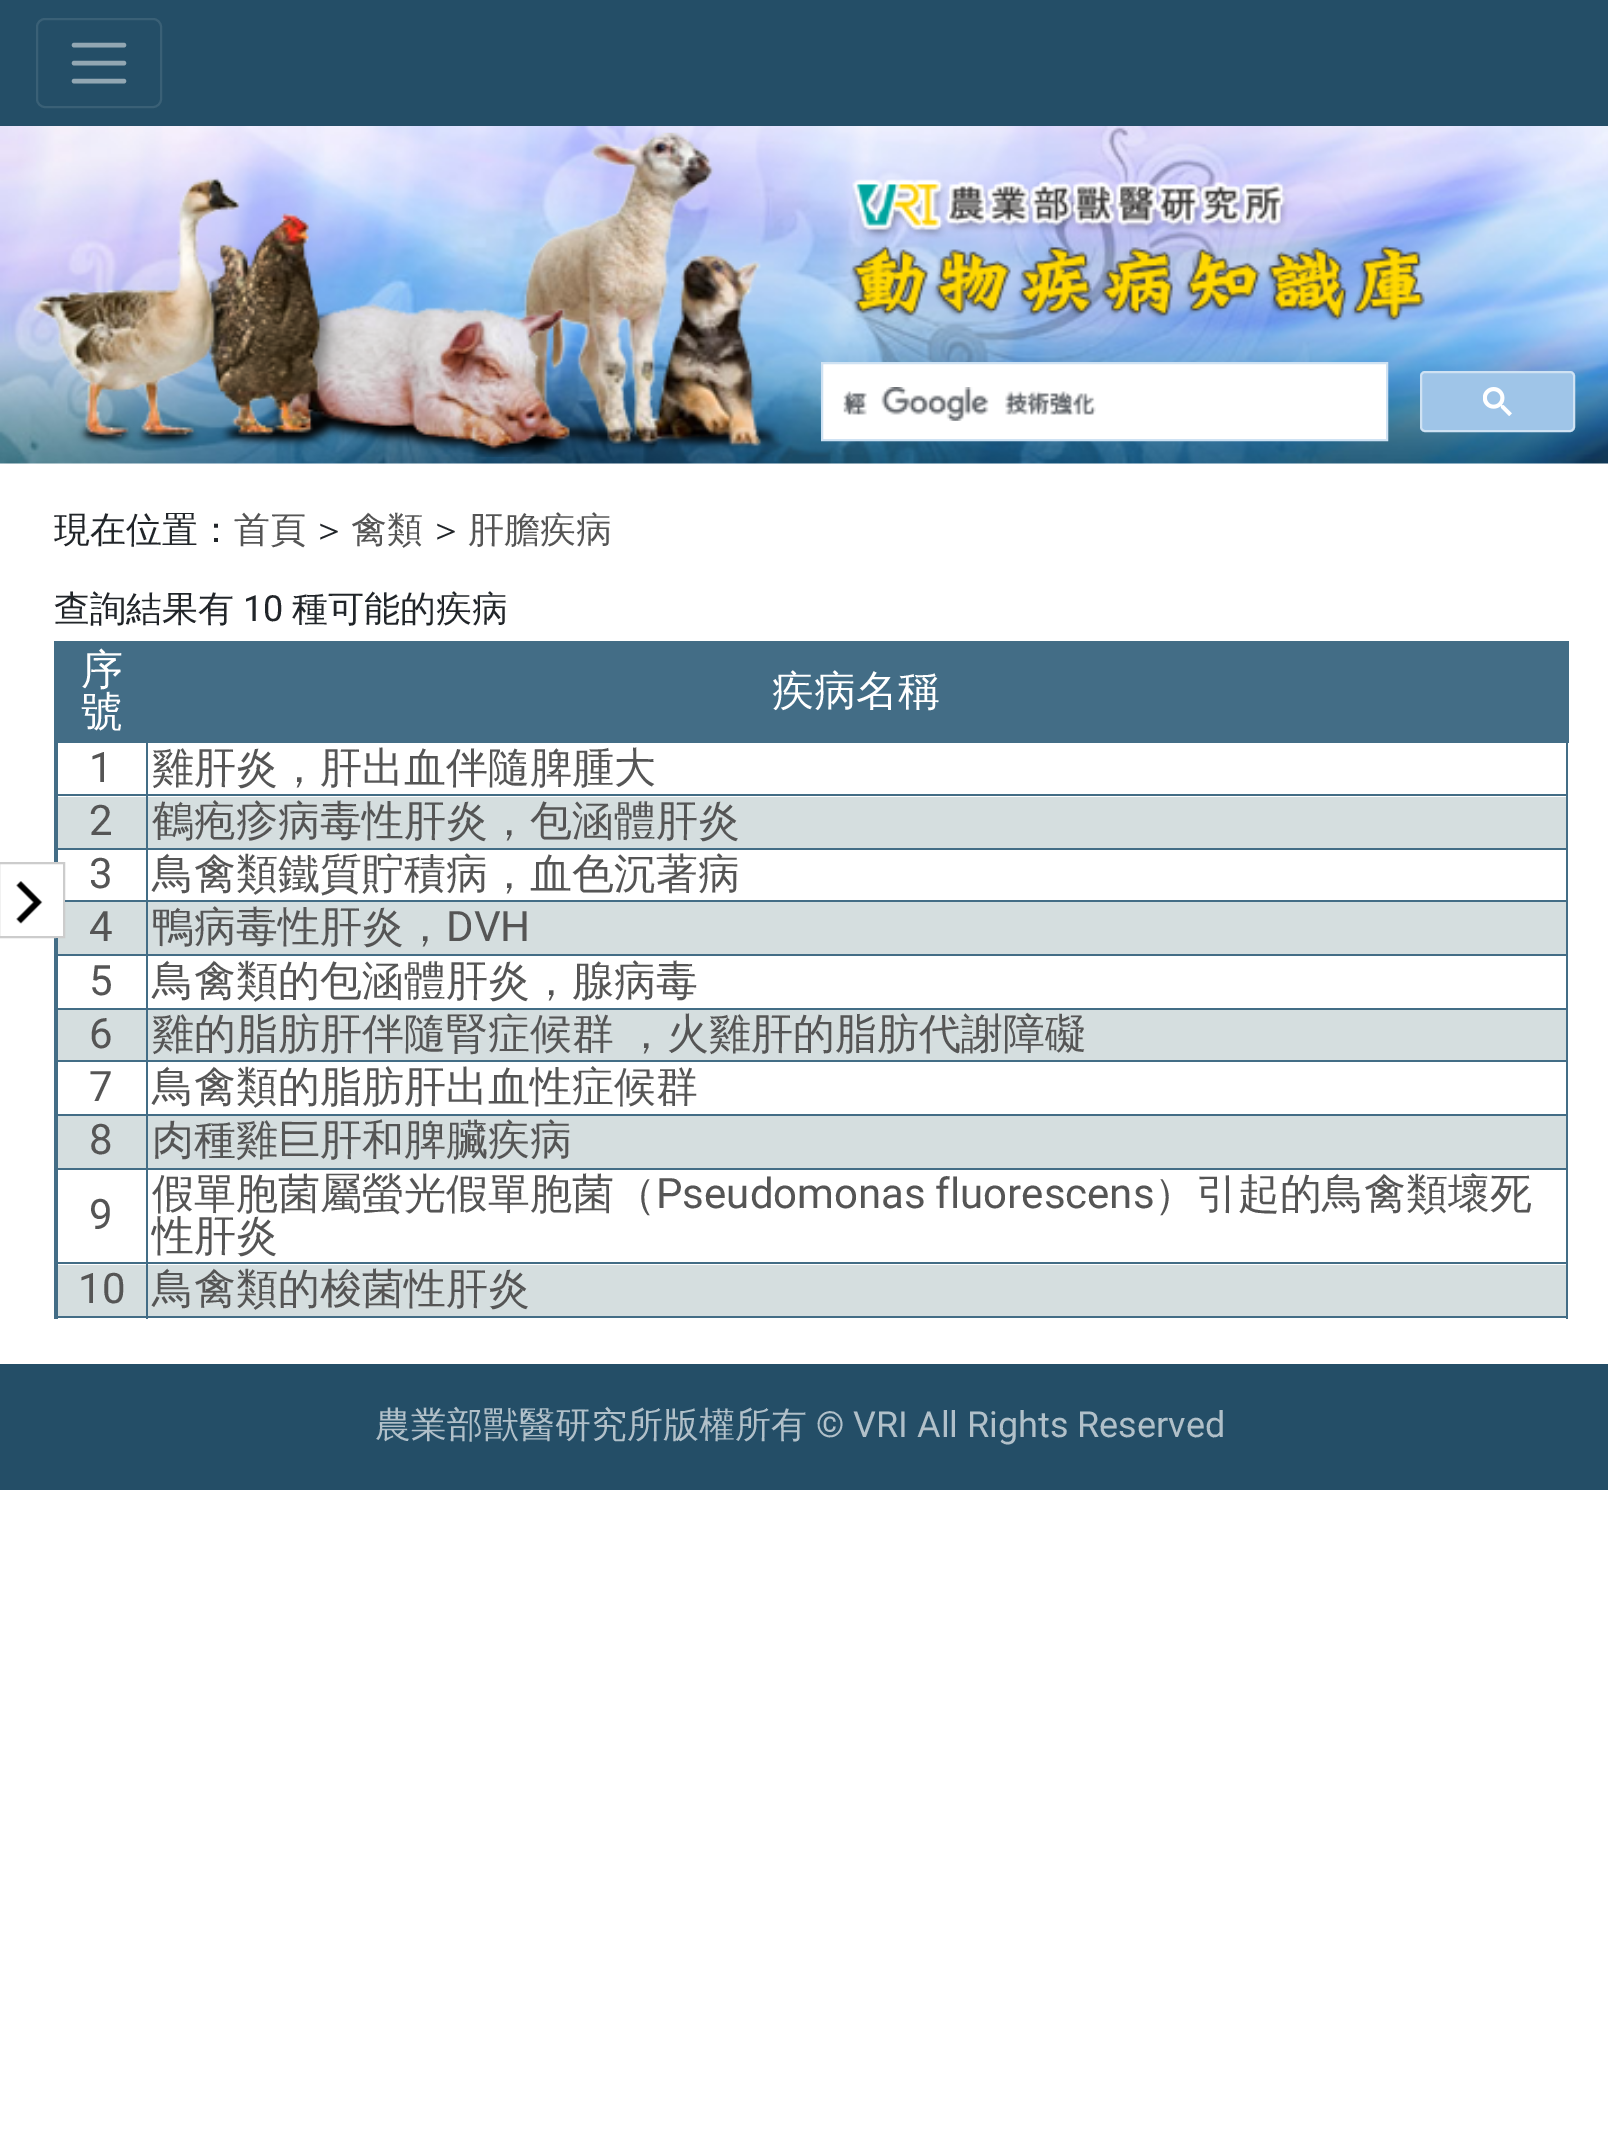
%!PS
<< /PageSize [1608 2147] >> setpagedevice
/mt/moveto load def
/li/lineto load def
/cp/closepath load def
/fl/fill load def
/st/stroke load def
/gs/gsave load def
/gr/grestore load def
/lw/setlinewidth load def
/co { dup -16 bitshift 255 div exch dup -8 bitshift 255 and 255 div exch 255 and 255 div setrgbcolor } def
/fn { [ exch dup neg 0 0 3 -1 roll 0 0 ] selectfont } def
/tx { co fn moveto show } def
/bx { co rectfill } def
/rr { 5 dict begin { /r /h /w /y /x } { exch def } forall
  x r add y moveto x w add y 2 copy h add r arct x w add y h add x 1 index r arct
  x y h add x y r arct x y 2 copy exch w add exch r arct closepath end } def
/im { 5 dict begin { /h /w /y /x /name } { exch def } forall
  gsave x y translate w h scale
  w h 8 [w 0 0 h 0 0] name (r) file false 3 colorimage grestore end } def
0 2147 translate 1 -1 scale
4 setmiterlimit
0 0 1608 2147 16#FFFFFF bx
0 0 1608 126 16#244E67 bx
16#3A6076 co
2 lw
37 19 124 88 8 rr st
16#92A7B3 co
4.5 lw
1 setlinecap
74 45 mt 124 45 li 74 63 mt 124 63 li 74 81 mt 124 81 li st
(media/1.raw) 0 126 1608 338 im
(media/2.raw) 33 132 746 325 im
(media/3.raw) 850 179 575 144 im
16#FFFFFF co
822 363 mt 1387 363 li 1387 440 li 822 440 li cp gs fl gr
16#CFE2F3 co
2 lw
0 setlinecap
st
(media/4.raw) 843 387 253 34 im
16#9FC5E8 co
1421 372 153 59 4 rr gs fl gr
16#CFE2F3 co
st
(media/5.raw) 1483 387 29 29 im
1566 743 2 576 16#436D86 bx
54 1316 1514 2 16#436D86 bx
54 641 2 678 16#436D86 bx
58 902 1508 52 16#D5DEDF bx
54 864 9 72 16#FFFFFF bx
16#CCCCCC co
-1 863 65 74 rectstroke
(media/6.raw) 16 881 27 43 im
56 646 1508 92 16#436D86 bx
54 641 1514 5 16#436D86 bx
1564 641 5 102 16#436D86 bx
146 794 1422 2 16#436D86 bx
58 797 1508 51 16#D5DEDF bx
146 848 1422 2 16#436D86 bx
146 900 1422 2 16#436D86 bx
146 954 1422 2 16#436D86 bx
146 1008 1422 2 16#436D86 bx
58 1010 1508 50 16#D5DEDF bx
146 1060 1422 2 16#436D86 bx
146 1114 1422 2 16#436D86 bx
58 1116 1508 52 16#D5DEDF bx
146 1168 1422 2 16#436D86 bx
146 1262 1422 2 16#436D86 bx
58 1265 1508 51 16#D5DEDF bx
146 1262 2 57 16#436D86 bx
56 1262 93 2 16#436D86 bx
146 1168 2 97 16#436D86 bx
56 1168 93 2 16#436D86 bx
146 1114 2 56 16#436D86 bx
56 1114 93 2 16#436D86 bx
146 1060 2 56 16#436D86 bx
56 1060 93 2 16#436D86 bx
146 1008 2 54 16#436D86 bx
56 1008 93 2 16#436D86 bx
146 954 2 56 16#436D86 bx
56 954 93 2 16#436D86 bx
146 900 2 56 16#436D86 bx
65 900 84 2 16#436D86 bx
146 848 2 54 16#436D86 bx
56 848 93 2 16#436D86 bx
146 794 2 57 16#436D86 bx
56 794 93 2 16#436D86 bx
146 740 2 57 16#436D86 bx
56 848 2 14 16#436D86 bx
56 740 2 111 16#436D86 bx
54 738 1514 5 16#436D86 bx
56 1262 2 57 16#436D86 bx
56 1168 2 97 16#436D86 bx
56 1114 2 56 16#436D86 bx
56 1060 2 56 16#436D86 bx
56 1008 2 54 16#436D86 bx
56 938 2 72 16#436D86 bx
0 1364 1608 126 16#244E67 bx
(現在位置：) 54 542 /WenQuanYiZenHei-Medium 36 16#212529 tx
(首頁) 234 542 /WenQuanYiZenHei-Medium 36 16#555555 tx
(＞) 311 542 /WenQuanYiZenHei-Medium 36 16#212529 tx
(禽類) 351 542 /WenQuanYiZenHei-Medium 36 16#555555 tx
(＞) 428 542 /WenQuanYiZenHei-Medium 36 16#212529 tx
(肝膽疾病) 468 542 /WenQuanYiZenHei-Medium 36 16#555555 tx
(查詢結果有) 54 621 /WenQuanYiZenHei-Medium 36 16#212529 tx
(10) 243 621 /Roboto-Regular 36 16#212529 tx
(種可能的疾病) 292 621 /WenQuanYiZenHei-Medium 36 16#212529 tx
(序) 81 684 /WenQuanYiZenHei-Medium 42 16#FFFFFF tx
(號) 81 726 /WenQuanYiZenHei-Medium 42 16#FFFFFF tx
(疾病名稱) 772 705 /WenQuanYiZenHei-Medium 42 16#FFFFFF tx
(1) 89 782 /Roboto-Regular 42 16#555555 tx
(雞肝炎，肝出血伴隨脾腫大) 152 782 /WenQuanYiZenHei-Medium 42 16#555555 tx
(2) 89 835 /Roboto-Regular 42 16#555555 tx
(鶴疱疹病毒性肝炎，包涵體肝炎) 152 835 /WenQuanYiZenHei-Medium 42 16#555555 tx
(3) 89 888 /Roboto-Regular 42 16#555555 tx
(鳥禽類鐵質貯積病，血色沉著病) 152 888 /WenQuanYiZenHei-Medium 42 16#555555 tx
(4) 89 941 /Roboto-Regular 42 16#555555 tx
(鴨病毒性肝炎，) 152 941 /WenQuanYiZenHei-Medium 42 16#555555 tx
(DVH) 446 941 /Roboto-Regular 42 16#555555 tx
(5) 89 995 /Roboto-Regular 42 16#555555 tx
(鳥禽類的包涵體肝炎，腺病毒) 152 995 /WenQuanYiZenHei-Medium 42 16#555555 tx
(6) 89 1048 /Roboto-Regular 42 16#555555 tx
/WenQuanYiZenHei-Medium 42 fn
152 1048 mt -2 0 32 (雞的脂肪肝伴隨腎症候群 ，火雞肝的脂肪代謝障礙) widthshow
(7) 89 1101 /Roboto-Regular 42 16#555555 tx
(鳥禽類的脂肪肝出血性症候群) 152 1101 /WenQuanYiZenHei-Medium 42 16#555555 tx
(8) 89 1154 /Roboto-Regular 42 16#555555 tx
(肉種雞巨肝和脾臟疾病) 152 1154 /WenQuanYiZenHei-Medium 42 16#555555 tx
(9) 89 1229 /Roboto-Regular 42 16#555555 tx
(假單胞菌屬螢光假單胞菌（) 152 1208 /WenQuanYiZenHei-Medium 42 16#555555 tx
/Roboto-Regular 42 fn
656 1208 mt -1 0 32 (Pseudomonas fluorescens) widthshow
(）引起的鳥禽類壞死) 1154 1208 /WenQuanYiZenHei-Medium 42 16#555555 tx
(性肝炎) 152 1250 /WenQuanYiZenHei-Medium 42 16#555555 tx
(10) 78 1303 /Roboto-Regular 42 16#555555 tx
(鳥禽類的梭菌性肝炎) 152 1303 /WenQuanYiZenHei-Medium 42 16#555555 tx
(農業部獸醫研究所版權所有) 375 1437 /WenQuanYiZenHei-Medium 36 16#B1C0C9 tx
(© VRI All Rights Reserved) 816 1437 /Roboto-Regular 36 16#B1C0C9 tx
showpage
